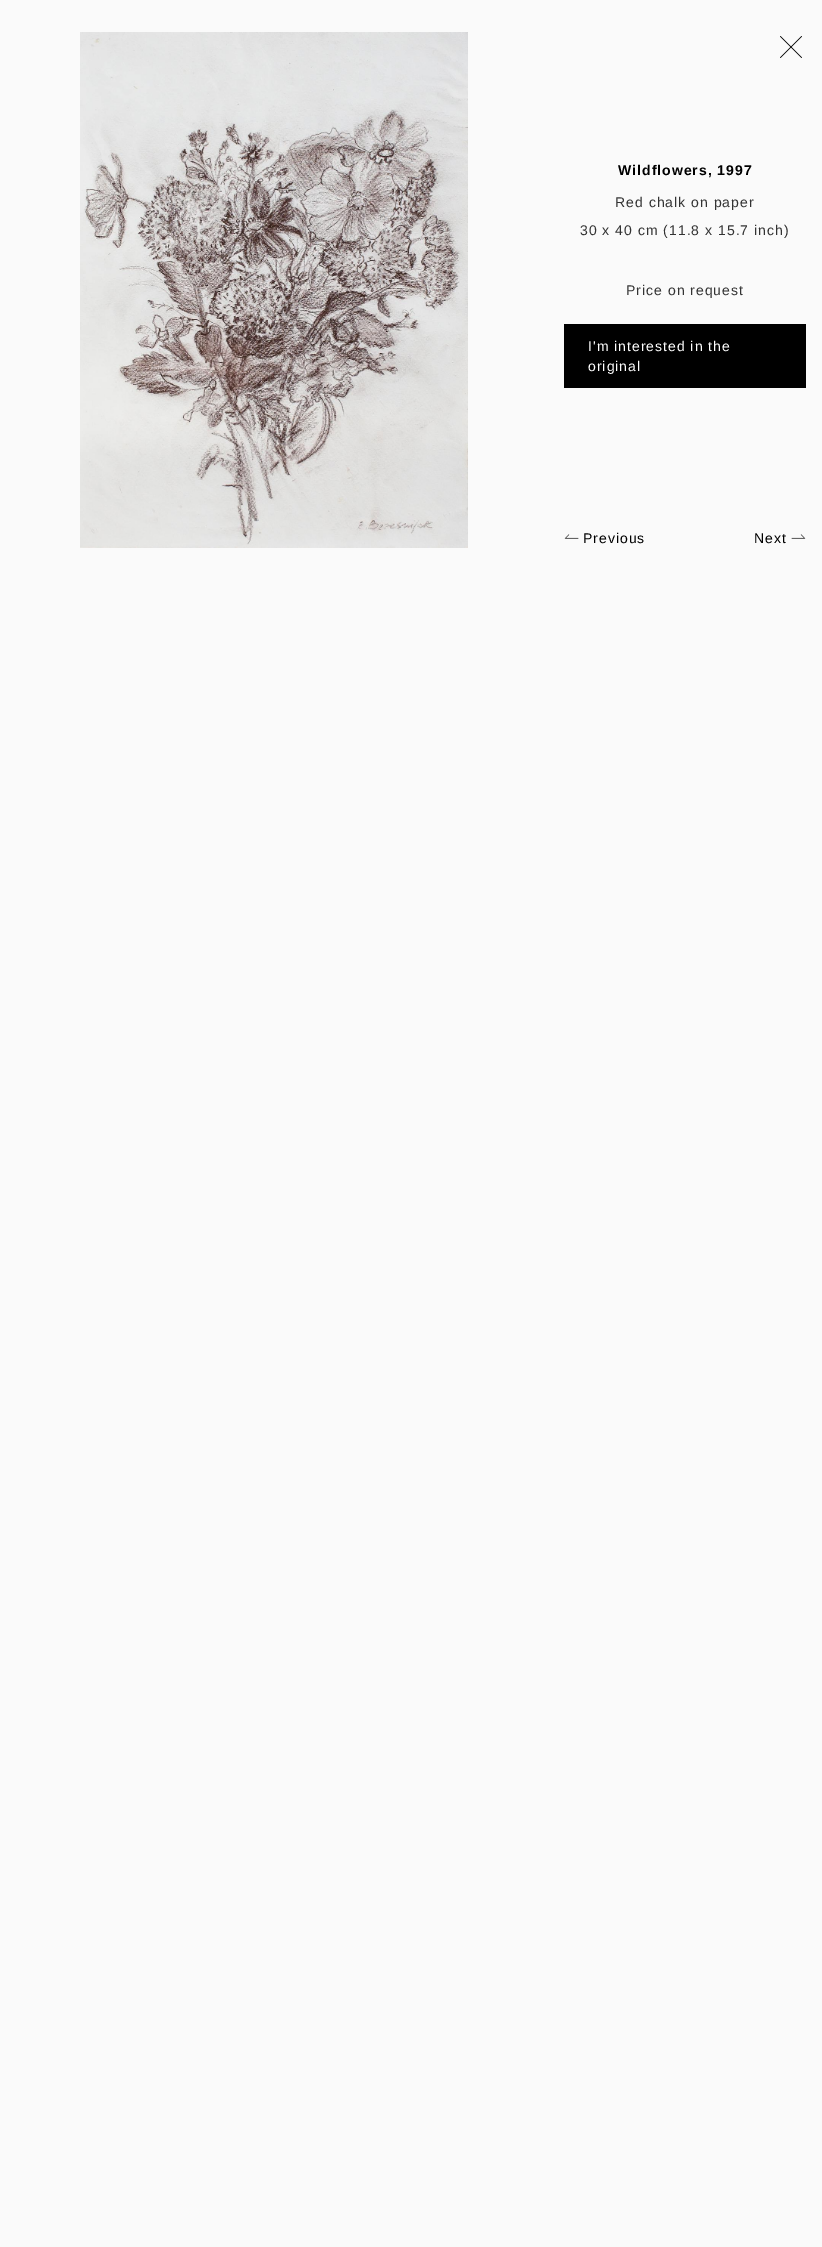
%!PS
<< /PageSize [822 2247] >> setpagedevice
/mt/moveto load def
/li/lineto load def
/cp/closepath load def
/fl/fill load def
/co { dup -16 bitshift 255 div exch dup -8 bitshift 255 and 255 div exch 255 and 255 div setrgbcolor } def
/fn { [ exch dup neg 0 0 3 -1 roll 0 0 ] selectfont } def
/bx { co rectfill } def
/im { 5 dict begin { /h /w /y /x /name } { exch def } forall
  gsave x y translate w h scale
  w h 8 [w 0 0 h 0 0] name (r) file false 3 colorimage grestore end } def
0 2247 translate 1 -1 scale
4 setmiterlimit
0 0 822 2247 16#FAFAFA bx
(media/1.raw) 80 32 388 516 im
564 324 242 64 16#000000 bx
780.5 36 mt 802 57.5 li 801.5 58 li 780 36.5 li cp fl
801.5 36 mt 802 36.5 li 780.5 58 li 780 57.5 li cp fl
(media/2.raw) 564 534 15 5 im
(media/3.raw) 791 534 15 5 im
/LiberationSans-Bold 14 fn
618 175 mt 1 0 (Wildflowers, 1997) ashow
/LiberationSans-Regular 14 fn
16#333333 co
615 207 mt 1 0 (Red chalk on paper) ashow
580 235 mt 1 0 (30 x 40 cm \(11.8 x 15.7 inch\)) ashow
626 295 mt 1 0 (Price on request) ashow
16#FFFFFF co
588 351 mt 1 0 (I'm interested in the) ashow
588 371 mt 1 0 (original) ashow
16#000000 co
583 543 mt 1 0 (Previous) ashow
754 543 mt 1 0 (Next) ashow
showpage
